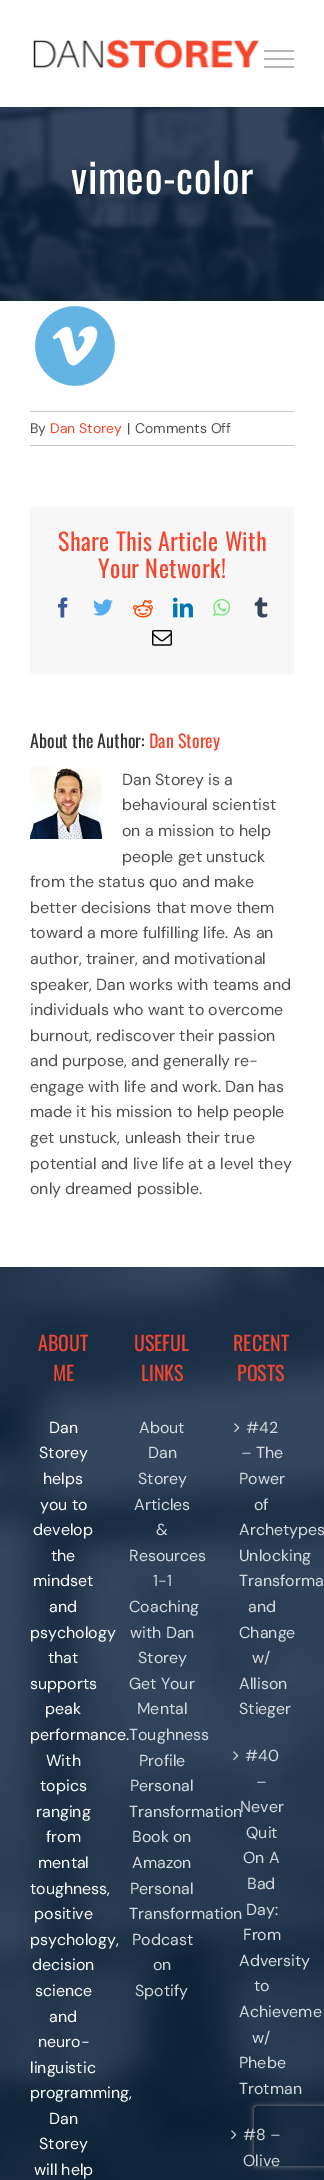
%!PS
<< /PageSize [324 2180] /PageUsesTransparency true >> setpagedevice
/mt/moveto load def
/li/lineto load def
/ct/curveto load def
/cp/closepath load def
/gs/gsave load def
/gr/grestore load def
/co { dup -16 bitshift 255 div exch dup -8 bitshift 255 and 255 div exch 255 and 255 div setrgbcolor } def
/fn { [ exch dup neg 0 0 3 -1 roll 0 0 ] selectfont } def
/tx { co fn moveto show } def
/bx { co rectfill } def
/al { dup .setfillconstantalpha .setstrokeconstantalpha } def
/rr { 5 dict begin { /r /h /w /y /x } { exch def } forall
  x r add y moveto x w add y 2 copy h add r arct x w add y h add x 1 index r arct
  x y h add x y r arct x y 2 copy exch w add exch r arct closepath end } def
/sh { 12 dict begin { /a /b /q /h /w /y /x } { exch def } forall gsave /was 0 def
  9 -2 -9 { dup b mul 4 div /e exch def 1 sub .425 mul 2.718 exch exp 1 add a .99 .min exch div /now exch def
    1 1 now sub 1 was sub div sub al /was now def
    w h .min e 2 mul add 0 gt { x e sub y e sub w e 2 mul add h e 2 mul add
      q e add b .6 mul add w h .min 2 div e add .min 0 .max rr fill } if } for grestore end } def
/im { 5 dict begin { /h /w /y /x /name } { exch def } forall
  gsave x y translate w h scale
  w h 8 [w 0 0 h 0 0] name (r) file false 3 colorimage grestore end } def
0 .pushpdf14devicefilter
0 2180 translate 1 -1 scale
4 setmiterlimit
0 0 324 2180 16#FFFFFF bx
(media/2.raw) 0 107 324 194 im
16#000000 co
0 1 324 107 0 1.5 .12 sh
0 0 324 107 16#FFFFFF bx
(media/1.raw) 33 39 227 30 im
264 50 30 2 16#B5B5B5 bx
264 58 30 2 16#B5B5B5 bx
264 66 30 2 16#B5B5B5 bx
(media/3.raw) 35 306 80 80 im
30 411 264 1 16#C6C4C4 bx
30 445 264 1 16#C6C4C4 bx
30 506 264 168 16#F7F7F7 bx
(media/4.raw) 58 597 10 21 im
(media/5.raw) 93 599 20 17 im
(media/6.raw) 133 600 20 18 im
(media/7.raw) 173 597 20 21 im
(media/8.raw) 213 598 18 18 im
(media/9.raw) 254 597 14 21 im
(media/10.raw) 152 630 20 16 im
(media/11.raw) 30 767 72 72 im
(media/12.raw) 0 1267 324 913 im
(media/13.raw) 234 1423 6 10 im
(media/14.raw) 233 1751 6 10 im
(media/15.raw) 231 2130 6 10 im
gs
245 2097 mt 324 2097 li 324 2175 li 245 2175 li cp 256 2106 mt 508 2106 li 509 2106 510 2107 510 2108 ct 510 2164 li 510 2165 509 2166 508 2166 ct 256 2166 li 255 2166 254 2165 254 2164 ct 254 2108 li 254 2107 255 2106 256 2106 ct cp eoclip newpath
16#808080 co
254 2106 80 60 2 2.5 1 sh
gr
/Oswald-Regular 41.5 fn
16#FFFFFF co
71 194 mt .6 0 (vimeo-color) ashow
(By) 30 433 /DMSans-Regular 14 16#4F4F4F tx
(Dan Storey) 50 433 /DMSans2-Regular 14 16#F4462E tx
(|) 127 433 /DMSans2-Regular 14 16#4F4F4F tx
(Comments Off) 135 433 /DMSans2-Regular 14 16#4F4F4F tx
/Oswald-Regular 24 fn
16#F4462E co
58 551 mt .4 0 (Share This Article With) ashow
98 578 mt .4 0 (Your Network!) ashow
(About the Author:) 30 748 /Oswald-Regular 18 16#333333 tx
(Dan Storey) 149 748 /Oswald-Regular 18 16#F4462E tx
(Dan Storey is a) 122 785 /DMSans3-Regular 16 16#4F4F4F tx
(behavioural scientist) 122 810 /DMSans3-Regular 16 16#4F4F4F tx
(on a mission to help) 122 836 /DMSans3-Regular 16 16#4F4F4F tx
(people get unstuck) 122 862 /DMSans3-Regular 16 16#4F4F4F tx
(from the status quo and make) 30 887 /DMSans3-Regular 16 16#4F4F4F tx
(better decisions that move them) 30 913 /DMSans3-Regular 16 16#4F4F4F tx
(toward a more fulfilling life. As an) 30 938 /DMSans3-Regular 16 16#4F4F4F tx
(author, trainer, and motivational) 30 964 /DMSans3-Regular 16 16#4F4F4F tx
(speaker, Dan works with teams and) 30 990 /DMSans3-Regular 16 16#4F4F4F tx
(individuals who want to overcome) 30 1015 /DMSans3-Regular 16 16#4F4F4F tx
(burnout, rediscover their passion) 30 1041 /DMSans3-Regular 16 16#4F4F4F tx
(and purpose, and generally re-) 30 1066 /DMSans3-Regular 16 16#4F4F4F tx
(engage with life and work. Dan has) 30 1092 /DMSans3-Regular 16 16#4F4F4F tx
(made it his mission to help people) 30 1117 /DMSans3-Regular 16 16#4F4F4F tx
(get unstuck, unleash their true) 30 1143 /DMSans3-Regular 16 16#4F4F4F tx
(potential and live life at a level they) 30 1169 /DMSans3-Regular 16 16#4F4F4F tx
(only dreamed possible.) 30 1194 /DMSans3-Regular 16 16#4F4F4F tx
(ABOUT) 38 1351 /Oswald-Regular 20 16#F4462E tx
(ME) 53 1381 /Oswald-Regular 20 16#F4462E tx
(Dan) 49 1433 /DMSans3-Regular 16 16#FFFFFF tx
(Storey) 39 1458 /DMSans3-Regular 16 16#FFFFFF tx
(helps) 43 1484 /DMSans3-Regular 16 16#FFFFFF tx
(you to) 40 1510 /DMSans3-Regular 16 16#FFFFFF tx
(develop) 33 1535 /DMSans3-Regular 16 16#FFFFFF tx
(the) 51 1561 /DMSans3-Regular 16 16#FFFFFF tx
(mindset) 33 1586 /DMSans3-Regular 16 16#FFFFFF tx
(and) 49 1612 /DMSans3-Regular 16 16#FFFFFF tx
(psychology) 30 1638 /DMSans3-Regular 16 16#FFFFFF tx
(that) 48 1663 /DMSans3-Regular 16 16#FFFFFF tx
(supports) 30 1689 /DMSans3-Regular 16 16#FFFFFF tx
(peak) 45 1714 /DMSans3-Regular 16 16#FFFFFF tx
(performance.) 30 1740 /DMSans3-Regular 16 16#FFFFFF tx
(With) 46 1766 /DMSans3-Regular 16 16#FFFFFF tx
(topics) 40 1791 /DMSans3-Regular 16 16#FFFFFF tx
(ranging) 36 1817 /DMSans3-Regular 16 16#FFFFFF tx
(from) 46 1842 /DMSans3-Regular 16 16#FFFFFF tx
(mental) 38 1868 /DMSans3-Regular 16 16#FFFFFF tx
(toughness,) 30 1894 /DMSans3-Regular 16 16#FFFFFF tx
(positive) 34 1919 /DMSans3-Regular 16 16#FFFFFF tx
(psychology,) 30 1945 /DMSans3-Regular 16 16#FFFFFF tx
(decision) 32 1970 /DMSans3-Regular 16 16#FFFFFF tx
(science) 35 1996 /DMSans3-Regular 16 16#FFFFFF tx
(and) 49 2022 /DMSans3-Regular 16 16#FFFFFF tx
(neuro-) 38 2047 /DMSans3-Regular 16 16#FFFFFF tx
(linguistic) 30 2073 /DMSans3-Regular 16 16#FFFFFF tx
(programming,) 30 2098 /DMSans3-Regular 16 16#FFFFFF tx
(Dan) 49 2124 /DMSans3-Regular 16 16#FFFFFF tx
(Storey) 39 2149 /DMSans3-Regular 16 16#FFFFFF tx
(will help) 34 2175 /DMSans3-Regular 16 16#FFFFFF tx
(USEFUL) 134 1351 /Oswald-Regular 20 16#F4462E tx
(LINKS) 141 1381 /Oswald-Regular 20 16#F4462E tx
(About) 139 1433 /DMSans3-Regular 16 16#D6DADF tx
(Dan) 148 1458 /DMSans3-Regular 16 16#D6DADF tx
(Storey) 138 1484 /DMSans3-Regular 16 16#D6DADF tx
(Articles) 134 1510 /DMSans3-Regular 16 16#D6DADF tx
(&) 156 1535 /DMSans3-Regular 16 16#D6DADF tx
(Resources) 129 1561 /DMSans3-Regular 16 16#D6DADF tx
(1-1) 153 1586 /DMSans3-Regular 16 16#D6DADF tx
(Coaching) 129 1612 /DMSans3-Regular 16 16#D6DADF tx
(with Dan) 130 1638 /DMSans3-Regular 16 16#D6DADF tx
(Storey) 138 1663 /DMSans3-Regular 16 16#D6DADF tx
(Get Your) 129 1689 /DMSans3-Regular 16 16#D6DADF tx
(Mental) 137 1714 /DMSans3-Regular 16 16#D6DADF tx
(Toughness) 129 1740 /DMSans3-Regular 16 16#D6DADF tx
(Profile) 139 1766 /DMSans3-Regular 16 16#D6DADF tx
(Personal) 130 1791 /DMSans3-Regular 16 16#D6DADF tx
(Transformation) 129 1817 /DMSans3-Regular 16 16#D6DADF tx
(Book on) 132 1842 /DMSans3-Regular 16 16#D6DADF tx
(Amazon) 132 1868 /DMSans3-Regular 16 16#D6DADF tx
(Personal) 130 1894 /DMSans3-Regular 16 16#D6DADF tx
(Transformation) 129 1919 /DMSans3-Regular 16 16#D6DADF tx
(Podcast) 132 1945 /DMSans3-Regular 16 16#D6DADF tx
(on) 153 1970 /DMSans3-Regular 16 16#D0D4D8 tx
(Spotify) 135 1996 /DMSans3-Regular 16 16#D0D4D8 tx
(RECENT) 233 1351 /Oswald-Regular 20 16#F4462E tx
(POSTS) 237 1381 /Oswald-Regular 20 16#F4462E tx
(#42) 246 1433 /DMSans3-Regular 16 16#D6DADF tx
(– The) 241 1458 /DMSans3-Regular 16 16#D6DADF tx
(Power) 239 1484 /DMSans3-Regular 16 16#D6DADF tx
(of) 254 1510 /DMSans3-Regular 16 16#D6DADF tx
(Archetypes) 239 1535 /DMSans3-Regular 16 16#D6DADF tx
(Unlocking) 239 1561 /DMSans3-Regular 16 16#D6DADF tx
(Transforma) 239 1586 /DMSans3-Regular 16 16#D6DADF tx
(and) 248 1612 /DMSans3-Regular 16 16#D6DADF tx
(Change) 239 1638 /DMSans3-Regular 16 16#D6DADF tx
(w/) 252 1663 /DMSans3-Regular 16 16#D6DADF tx
(Allison) 239 1689 /DMSans3-Regular 16 16#D6DADF tx
(Stieger) 239 1714 /DMSans3-Regular 16 16#D6DADF tx
(#40) 245 1761 /DMSans3-Regular 16 16#D6DADF tx
(–) 256 1787 /DMSans3-Regular 16 16#D6DADF tx
(Never) 240 1812 /DMSans3-Regular 16 16#D6DADF tx
(Quit) 246 1838 /DMSans3-Regular 16 16#D6DADF tx
(On A) 243 1863 /DMSans3-Regular 16 16#D6DADF tx
(Bad) 247 1889 /DMSans3-Regular 16 16#D6DADF tx
(Day:) 246 1915 /DMSans3-Regular 16 16#D6DADF tx
(From) 243 1940 /DMSans3-Regular 16 16#D6DADF tx
(Adversity) 239 1966 /DMSans3-Regular 16 16#D6DADF tx
(to) 254 1991 /DMSans3-Regular 16 16#D6DADF tx
(Achieveme) 239 2017 /DMSans3-Regular 16 16#D6DADF tx
(w/) 252 2043 /DMSans3-Regular 16 16#D6DADF tx
(Phebe) 239 2068 /DMSans3-Regular 16 16#D6DADF tx
(Trotman) 239 2094 /DMSans3-Regular 16 16#D0D4D8 tx
(#8 –) 243 2140 /DMSans3-Regular 16 16#D0D4D8 tx
(Olive) 243 2166 /DMSans3-Regular 16 16#D0D4D8 tx
.poppdf14devicefilter showpage
